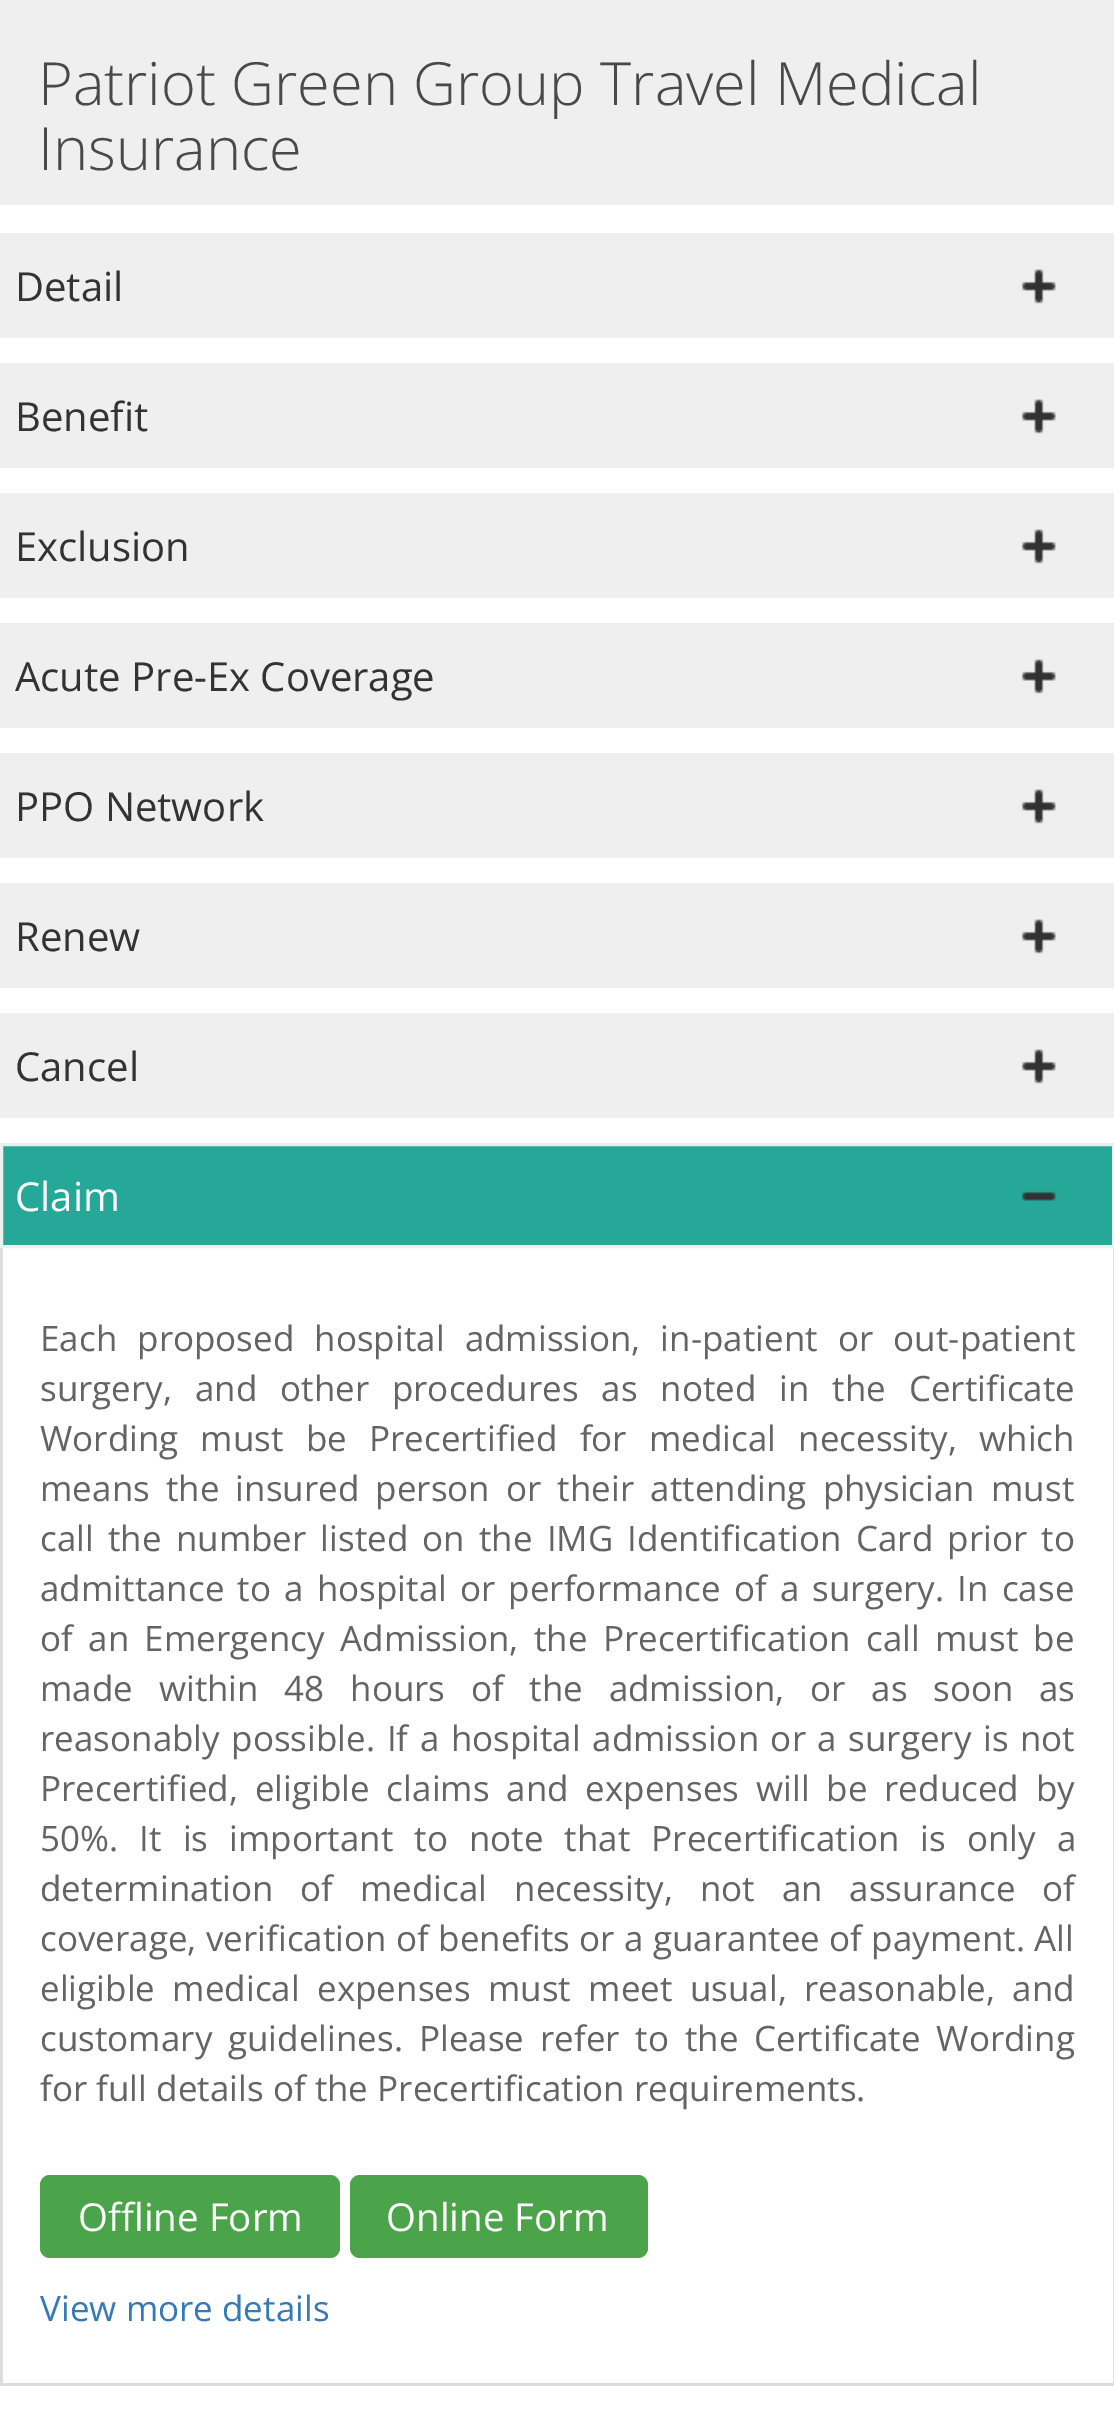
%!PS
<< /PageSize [1114 2417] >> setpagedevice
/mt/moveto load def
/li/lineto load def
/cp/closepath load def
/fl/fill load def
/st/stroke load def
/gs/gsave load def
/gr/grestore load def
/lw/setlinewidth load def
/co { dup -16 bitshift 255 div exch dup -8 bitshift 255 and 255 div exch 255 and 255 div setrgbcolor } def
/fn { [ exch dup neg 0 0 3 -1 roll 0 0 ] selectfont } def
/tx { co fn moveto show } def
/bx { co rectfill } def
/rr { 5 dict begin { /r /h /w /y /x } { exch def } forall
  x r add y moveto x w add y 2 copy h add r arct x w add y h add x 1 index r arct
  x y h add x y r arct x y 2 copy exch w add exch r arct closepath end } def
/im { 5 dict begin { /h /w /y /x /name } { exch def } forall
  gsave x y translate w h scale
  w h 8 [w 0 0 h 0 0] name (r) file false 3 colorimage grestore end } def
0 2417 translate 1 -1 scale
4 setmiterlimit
0 0 1114 2417 16#FFFFFF bx
0 0 1114 205 16#EFEFEF bx
0 233 1114 105 16#EFEFEF bx
(media/1.raw) 1021 269 35 35 im
0 363 1114 105 16#EFEFEF bx
(media/1.raw) 1021 399 35 35 im
0 493 1114 105 16#EFEFEF bx
(media/1.raw) 1021 529 35 35 im
0 623 1114 105 16#EFEFEF bx
(media/1.raw) 1021 659 35 35 im
0 753 1114 105 16#EFEFEF bx
(media/1.raw) 1021 789 35 35 im
0 883 1114 105 16#EFEFEF bx
(media/1.raw) 1021 919 35 35 im
0 1013 1114 105 16#EFEFEF bx
(media/1.raw) 1021 1049 35 35 im
16#26A899 co
1.5 1144.5 mt 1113.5 1144.5 li 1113.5 1246.5 li 1.5 1246.5 li cp gs fl gr
16#EFEFEF co
3 lw
st
(media/2.raw) 1021 1191 35 10 im
1113 1248 1 1137 16#DDDDDD bx
0 2383 1114 3 16#DDDDDD bx
0 1248 3 1137 16#DDDDDD bx
16#4BA449 co
40 2175 300 83 10 rr fl
350 2175 298 83 10 rr fl
(Patriot Green Group Travel Medical) 38 105 /OpenSans-Light 59.5 16#494949 tx
(Insurance) 38 170 /OpenSans-Light 59.5 16#494949 tx
(Detail) 15 301 /OpenSans-Regular 40 16#333333 tx
(Benefit) 15 431 /OpenSans-Regular 40 16#333333 tx
(Exclusion) 15 561 /OpenSans-Regular 40 16#333333 tx
(Acute Pre-Ex Coverage) 15 691 /OpenSans-Regular 40 16#333333 tx
(PPO Network) 15 821 /OpenSans-Regular 40 16#333333 tx
(Renew) 15 951 /OpenSans-Regular 40 16#333333 tx
(Cancel) 15 1081 /OpenSans-Regular 40 16#333333 tx
(Claim) 15 1211 /OpenSans-Regular 40 16#FFFFFF tx
/OpenSans-Regular 35 fn
16#646464 co
40 1351 mt 11 0 32 (Each proposed hospital admission, in-patient or out-patient) widthshow
40 1401 mt 13.75 0 32 (surgery, and other procedures as noted in the Certificate) widthshow
40 1451 mt 13 0 32 (Wording must be Precertified for medical necessity, which) widthshow
40 1501 mt 7 0 32 (means the insured person or their attending physician must) widthshow
40 1551 mt 5 0 32 (call the number listed on the IMG Identification Card prior to) widthshow
40 1601 mt 4 0 32 (admittance to a hospital or performance of a surgery. In case) widthshow
40 1651 mt 6.25 0 32 (of an Emergency Admission, the Precertification call must be) widthshow
40 1701 mt 16.6 0 32 (made within 48 hours of the admission, or as soon as) widthshow
40 1751 mt 2.4 0 32 (reasonably possible. If a hospital admission or a surgery is not) widthshow
40 1801 mt 7.75 0 32 (Precertified, eligible claims and expenses will be reduced by) widthshow
40 1851 mt 12 0 32 (50%. It is important to note that Precertification is only a) widthshow
40 1901 mt 17.75 0 32 (determination of medical necessity, not an assurance of) widthshow
40 1951 mt .25 0 32 (coverage, verification of benefits or a guarantee of payment. All) widthshow
40 2001 mt 8.25 0 32 (eligible medical expenses must meet usual, reasonable, and) widthshow
40 2051 mt 6.75 0 32 (customary guidelines. Please refer to the Certificate Wording) widthshow
(for full details of the Precertification requirements.) 40 2101 /OpenSans-Regular 35 16#646464 tx
(Offline Form) 78 2231 /OpenSans-Regular 38.5 16#FFFFFF tx
(Online Form) 386 2231 /OpenSans-Regular 38.5 16#FFFFFF tx
(View more details) 40 2321 /OpenSans-Regular 35 16#337AB7 tx
showpage
